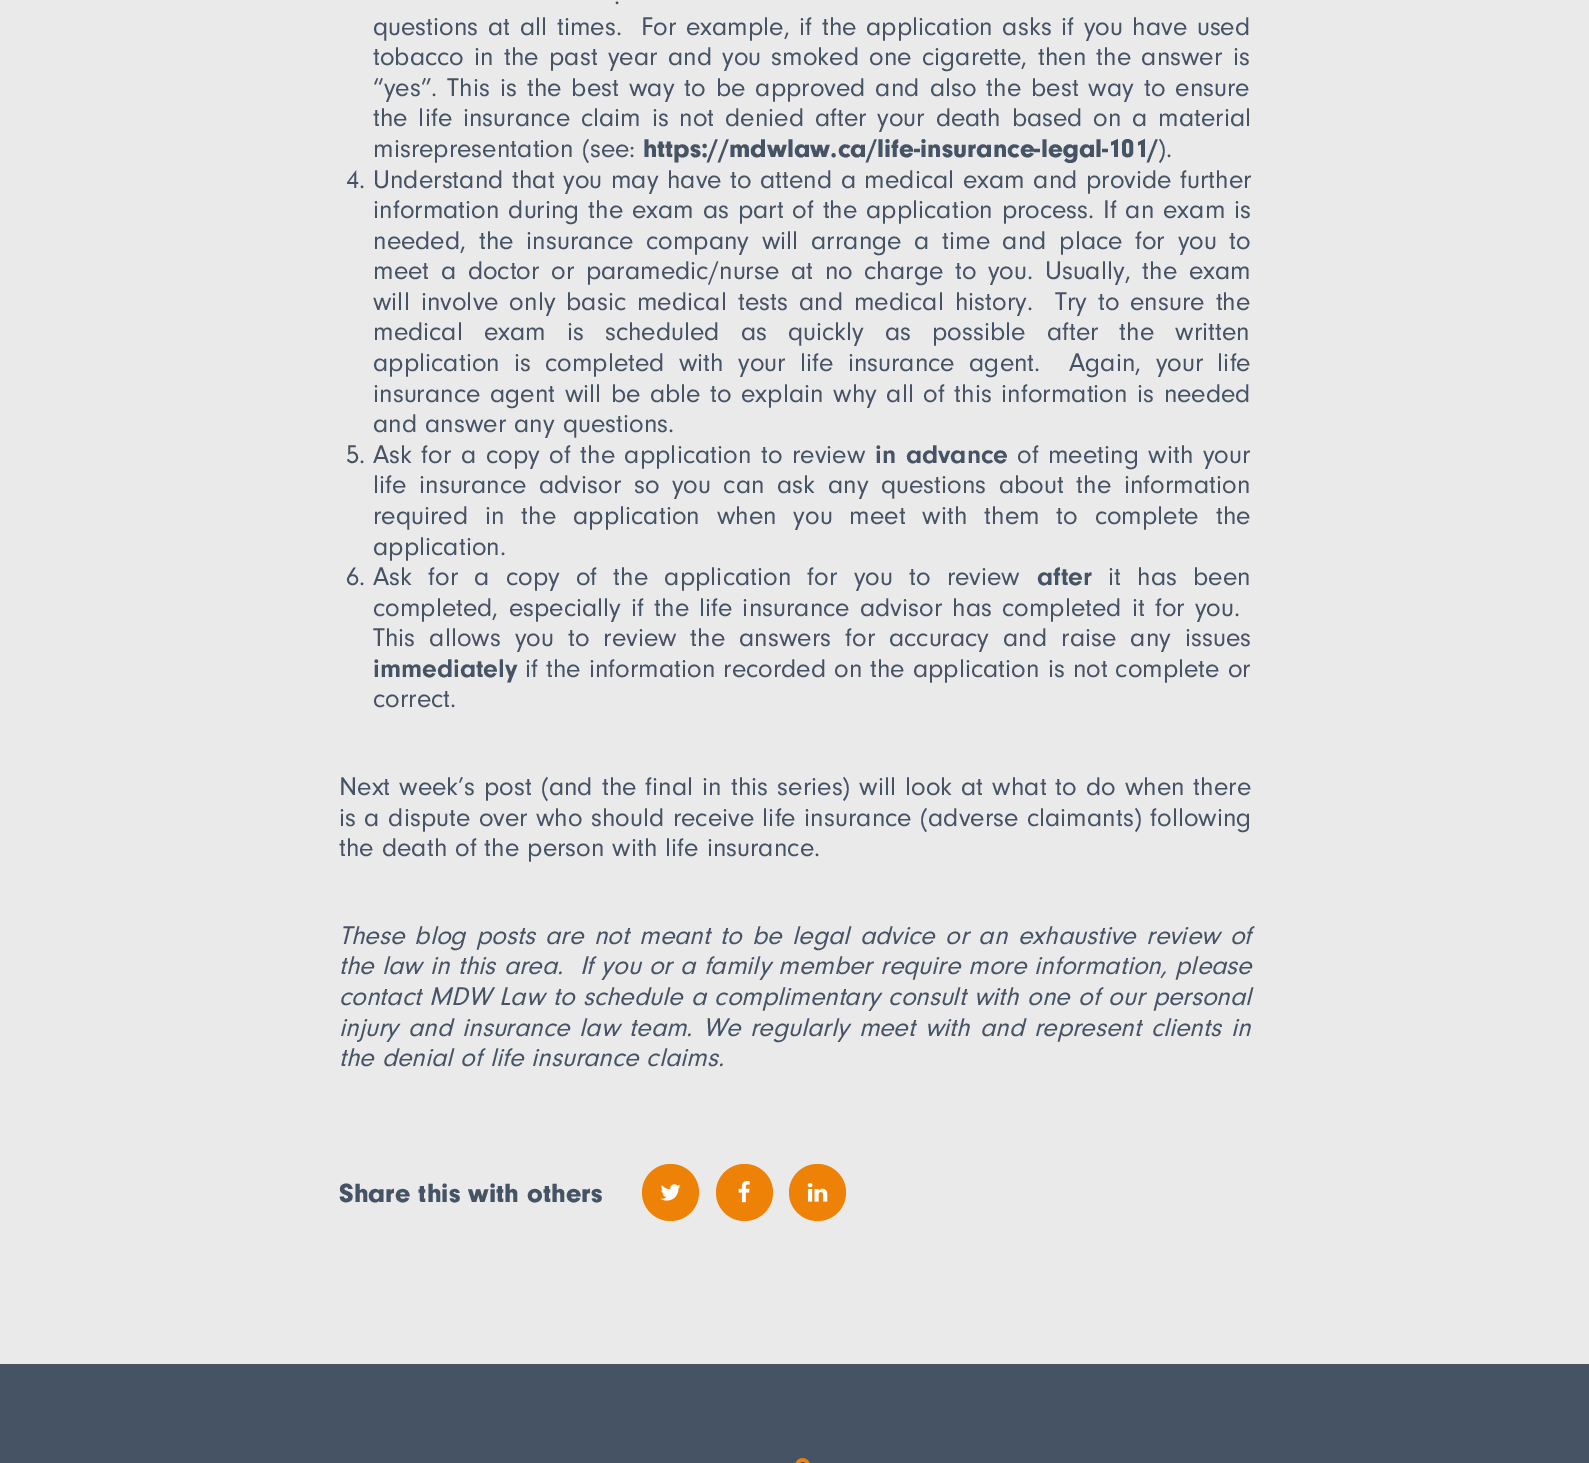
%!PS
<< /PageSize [1589 1463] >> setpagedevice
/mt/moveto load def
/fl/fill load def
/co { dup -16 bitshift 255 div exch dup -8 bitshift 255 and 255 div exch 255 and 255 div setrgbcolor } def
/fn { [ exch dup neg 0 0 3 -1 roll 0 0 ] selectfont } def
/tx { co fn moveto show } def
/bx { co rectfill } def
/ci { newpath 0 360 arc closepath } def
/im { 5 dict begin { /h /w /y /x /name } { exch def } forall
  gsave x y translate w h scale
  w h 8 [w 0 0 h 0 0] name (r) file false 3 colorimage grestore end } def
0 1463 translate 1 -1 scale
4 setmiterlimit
0 0 1589 1463 16#EAEAEA bx
16#EE8207 co
670.5 1192.5 28.5 ci fl
(media/1.raw) 660 1184 21 17 im
744.5 1192.5 28.5 ci fl
(media/2.raw) 738 1181 12 22 im
817.5 1192.5 28.5 ci fl
(media/3.raw) 807 1183 21 19 im
0 1364 1589 99 16#465365 bx
(media/4.raw) 795 1458 15 5 im
/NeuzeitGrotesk-Regular 26.6 fn
614 4 mt 6 0 32 (.) widthshow
373 35 mt 1.6 0 32 (questions at all times.  For example, if the application asks if you have used) widthshow
373 65 mt 2.25 0 32 (tobacco in the past year and you smoked one cigarette, then the answer is) widthshow
373 96 mt 2 0 32 (“yes”. This is the best way to be approved and also the best way to ensure) widthshow
373 126 mt 2.75 0 32 (the life insurance claim is not denied after your death based on a material) widthshow
(misrepresentation \(see:) 373 157 /NeuzeitGrotesk-Regular 26.6 16#465365 tx
(https://mdwlaw.ca/life-insurance-legal-101/) 643 157 /NeuzeitGrotesk-Black 26.6 16#465365 tx
(\).) 1158 157 /NeuzeitGrotesk-Regular 26.6 16#465365 tx
(4.) 346 188 /NeuzeitGrotesk-Regular 26.6 16#465365 tx
373 188 mt .5 0 32 (Understand that you may have to attend a medical exam and provide further) widthshow
373 218 mt .75 0 32 (information during the exam as part of the application process. If an exam is) widthshow
373 249 mt 4.6 0 32 (needed, the insurance company will arrange a time and place for you to) widthshow
373 279 mt 3.6 0 32 (meet a doctor or paramedic/nurse at no charge to you. Usually, the exam) widthshow
373 310 mt 3 0 32 (will involve only basic medical tests and medical history.  Try to ensure the) widthshow
373 340 mt 13 0 32 (medical exam is scheduled as quickly as possible after the written) widthshow
373 371 mt 6.25 0 32 (application is completed with your life insurance agent.  Again, your life) widthshow
373 402 mt 1.5 0 32 (insurance agent will be able to explain why all of this information is needed) widthshow
(and answer any questions.) 373 432 /NeuzeitGrotesk-Regular 26.6 16#465365 tx
(5.) 346 463 /NeuzeitGrotesk-Regular 26.6 16#465365 tx
373 463 mt 1.6 0 32 (Ask for a copy of the application to review) widthshow
/NeuzeitGrotesk-Bold 26.6 fn
875 463 mt 2 0 32 (in advance) widthshow
/NeuzeitGrotesk-Regular 26.6 fn
1017 463 mt 1.5 0 32 (of meeting with your) widthshow
373 493 mt 4.6 0 32 (life insurance advisor so you can ask any questions about the information) widthshow
373 524 mt 8.9 0 32 (required in the application when you meet with them to complete the) widthshow
(application.) 373 555 /NeuzeitGrotesk-Regular 26.6 16#465365 tx
(6.) 346 585 /NeuzeitGrotesk-Regular 26.6 16#465365 tx
373 585 mt 8.25 0 32 (Ask for a copy of the application for you to review) widthshow
(after) 1037 585 /NeuzeitGrotesk-Bold 26.6 16#465365 tx
/NeuzeitGrotesk-Regular 26.6 fn
1108 585 mt 8.25 0 32 (it has been) widthshow
373 616 mt 2.1 0 32 (completed, especially if the life insurance advisor has completed it for you.) widthshow
373 646 mt 6 0 32 (This allows you to review the answers for accuracy and raise any issues) widthshow
(immediately) 373 677 /NeuzeitGrotesk-Bold 26.6 16#465365 tx
(if the information recorded on the application is not complete or) 525 677 /NeuzeitGrotesk-Regular 26.6 16#465365 tx
(correct.) 373 707 /NeuzeitGrotesk-Regular 26.6 16#465365 tx
339 795 mt 1 0 32 (Next week’s post \(and the final in this series\) will look at what to do when there) widthshow
339 826 mt .5 0 32 (is a dispute over who should receive life insurance \(adverse claimants\) following) widthshow
(the death of the person with life insurance.) 339 856 /NeuzeitGrotesk-Regular 26.6 16#465365 tx
/NeuzeitGrotesk-Italic 26.6 fn
339 944 mt 2.5 0 32 (These blog posts are not meant to be legal advice or an exhaustive review of) widthshow
339 974 mt .25 0 32 (the law in this area.  If you or a family member require more information, please) widthshow
339 1005 mt .5 0 32 (contact MDW Law to schedule a complimentary consult with one of our personal) widthshow
339 1036 mt 2.1 0 32 (injury and insurance law team. We regularly meet with and represent clients in) widthshow
(the denial of life insurance claims.) 339 1066 /NeuzeitGrotesk-Italic 26.6 16#465365 tx
(Share this with others) 339 1202 /NeuzeitGrotesk-Black 27.4 16#465365 tx
showpage
